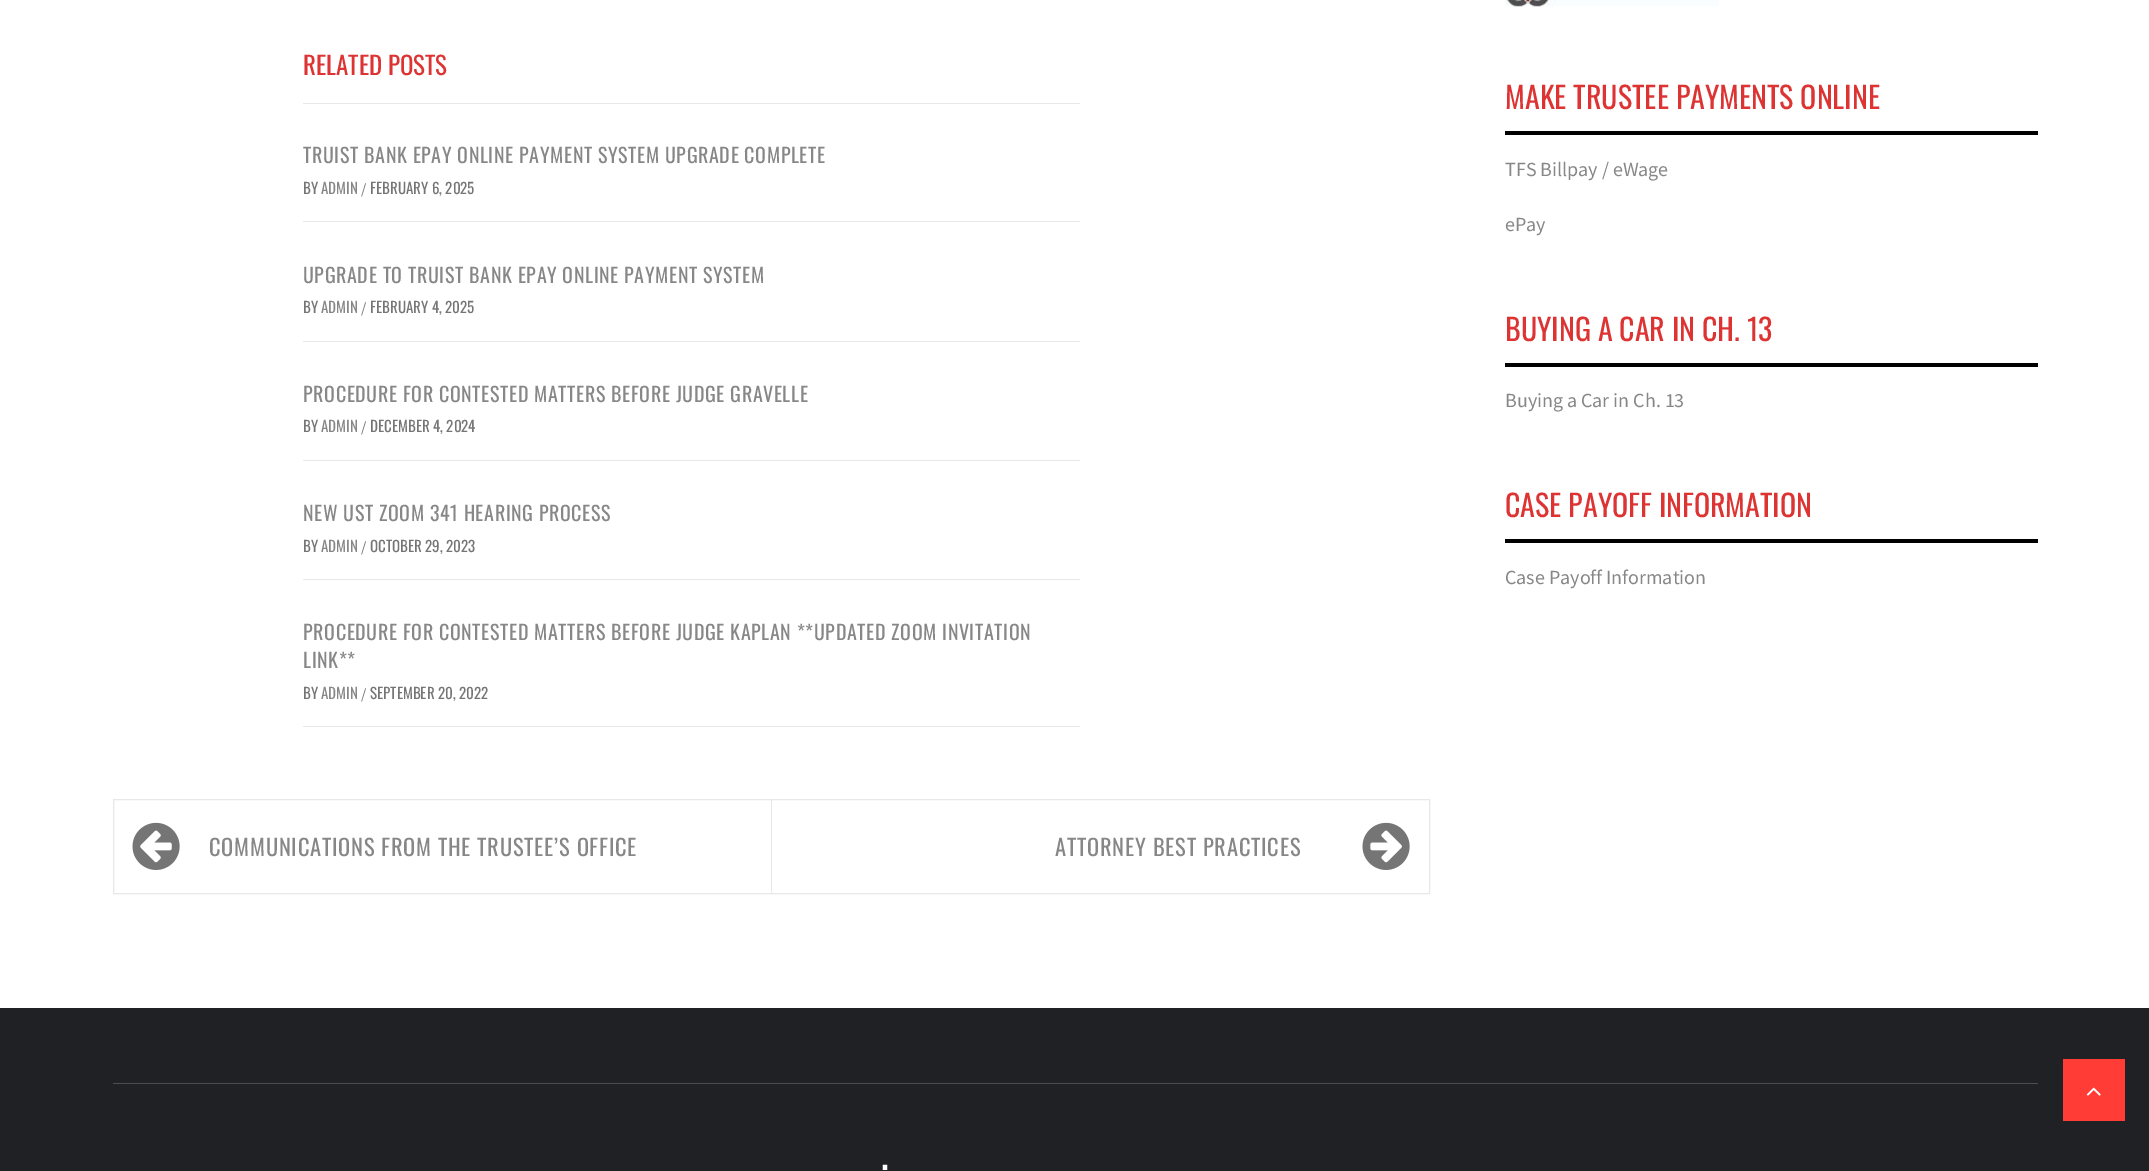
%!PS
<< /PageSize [2149 1171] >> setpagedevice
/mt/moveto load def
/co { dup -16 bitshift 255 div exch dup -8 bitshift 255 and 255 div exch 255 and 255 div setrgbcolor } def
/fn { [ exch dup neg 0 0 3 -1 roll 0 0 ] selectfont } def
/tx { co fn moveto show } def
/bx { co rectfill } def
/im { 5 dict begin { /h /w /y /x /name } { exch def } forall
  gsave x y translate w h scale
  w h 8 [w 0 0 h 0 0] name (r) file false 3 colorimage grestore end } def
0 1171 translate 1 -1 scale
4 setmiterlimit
0 0 2149 1171 16#FFFFFF bx
303 103 777 1 16#E8E8E8 bx
303 221 777 1 16#E8E8E8 bx
303 341 777 1 16#E8E8E8 bx
303 460 777 1 16#E8E8E8 bx
303 579 777 1 16#E8E8E8 bx
303 726 777 1 16#E8E8E8 bx
113.5 799.5 1316 94 rectstroke
771 800 1 93 16#E8E8E8 bx
(media/1.raw) 132 822 48 48 im
(media/2.raw) 1362 822 48 48 im
(media/3.raw) 1505 0 214 7 im
1505 131 533 4 16#000000 bx
1505 363 533 4 16#000000 bx
1505 539 533 4 16#000000 bx
0 1008 2149 163 16#1F2125 bx
113 1083 1925 1 16#4C4D51 bx
2063 1059 62 62 16#FF3C36 bx
(media/4.raw) 2086 1087 15 9 im
(RELATED POSTS) 303 75 /Oswald-Regular 25 16#DD3333 tx
/Oswald-Regular 20 fn
16#878787 co
303 163 mt .62 0 (TRUIST BANK EPAY ONLINE PAYMENT SYSTEM UPGRADE COMPLETE) ashow
(BY) 303 194 /Oswald-Regular 15 16#757575 tx
(ADMIN) 321 194 /Oswald-Regular 15 16#878787 tx
(/) 361 194 /SourceSansPro-Regular 15 16#757575 tx
(FEBRUARY 6, 2025) 370 194 /Oswald-Regular 15 16#757575 tx
/Oswald-Regular 20 fn
16#878787 co
303 283 mt .62 0 (UPGRADE TO TRUIST BANK EPAY ONLINE PAYMENT SYSTEM) ashow
(BY) 303 313 /Oswald-Regular 15 16#757575 tx
(ADMIN) 321 313 /Oswald-Regular 15 16#878787 tx
(/) 361 313 /SourceSansPro-Regular 15 16#757575 tx
(FEBRUARY 4, 2025) 370 313 /Oswald-Regular 15 16#757575 tx
/Oswald-Regular 20 fn
16#878787 co
303 402 mt .62 0 (PROCEDURE FOR CONTESTED MATTERS BEFORE JUDGE GRAVELLE) ashow
(BY) 303 432 /Oswald-Regular 15 16#757575 tx
(ADMIN) 321 432 /Oswald-Regular 15 16#878787 tx
(/) 361 432 /SourceSansPro-Regular 15 16#757575 tx
(DECEMBER 4, 2024) 370 432 /Oswald-Regular 15 16#757575 tx
/Oswald-Regular 20 fn
16#878787 co
303 521 mt .62 0 (NEW UST ZOOM 341 HEARING PROCESS) ashow
(BY) 303 552 /Oswald-Regular 15 16#757575 tx
(ADMIN) 321 552 /Oswald-Regular 15 16#878787 tx
(/) 361 552 /SourceSansPro-Regular 15 16#757575 tx
(OCTOBER 29, 2023) 370 552 /Oswald-Regular 15 16#757575 tx
/Oswald-Regular 20 fn
16#878787 co
303 640 mt .62 0 (PROCEDURE FOR CONTESTED MATTERS BEFORE JUDGE KAPLAN **UPDATED ZOOM INVITATION) ashow
303 668 mt .62 0 (LINK**) ashow
(BY) 303 699 /Oswald-Regular 15 16#757575 tx
(ADMIN) 321 699 /Oswald-Regular 15 16#878787 tx
(/) 361 699 /SourceSansPro-Regular 15 16#757575 tx
(SEPTEMBER 20, 2022) 370 699 /Oswald-Regular 15 16#757575 tx
/Oswald-Regular 22.5 fn
16#878787 co
209 856 mt .8 0 (COMMUNICATIONS FROM THE TRUSTEE’S OFFICE) ashow
1055 856 mt .8 0 (ATTORNEY BEST PRACTICES) ashow
(MAKE TRUSTEE PAYMENTS ONLINE) 1505 109 /Oswald-Regular 30 16#DD3333 tx
(TFS Billpay / eWage) 1505 176 /SourceSansPro-Regular 20 16#878787 tx
(ePay) 1505 231 /SourceSansPro-Regular 20 16#878787 tx
(BUYING A CAR IN CH. 13) 1505 341 /Oswald-Regular 30 16#DD3333 tx
(Buying a Car in Ch. 13) 1505 407 /SourceSansPro-Regular 20 16#878787 tx
(CASE PAYOFF INFORMATION) 1505 517 /Oswald-Regular 30 16#DD3333 tx
(Case Payoff Information) 1505 584 /SourceSansPro-Regular 20 16#878787 tx
/Oswald-Light 60 fn
16#FFFFFF co
879 1190 mt .62 0 (·) ashow
showpage
